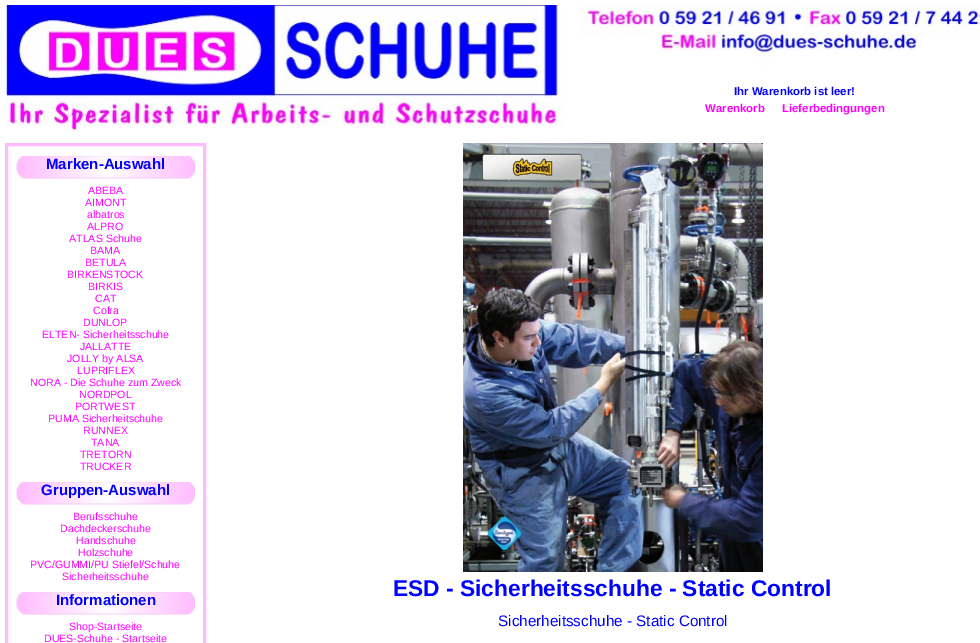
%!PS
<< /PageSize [980 643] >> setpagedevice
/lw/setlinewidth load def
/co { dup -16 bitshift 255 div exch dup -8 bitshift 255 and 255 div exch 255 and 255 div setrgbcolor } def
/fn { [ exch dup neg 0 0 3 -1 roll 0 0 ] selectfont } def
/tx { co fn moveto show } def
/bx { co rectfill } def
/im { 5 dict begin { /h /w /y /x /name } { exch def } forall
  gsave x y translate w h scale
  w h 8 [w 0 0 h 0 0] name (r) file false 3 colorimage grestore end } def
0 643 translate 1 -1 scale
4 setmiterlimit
0 0 980 643 16#FFFFFF bx
(media/1.raw) 6 5 974 125 im
16#FFBBFF co
3 lw
6.5 144.5 198 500 rectstroke
(media/2.raw) 16 156 179 23 im
(media/2.raw) 16 482 179 23 im
(media/2.raw) 16 592 179 23 im
(media/3.raw) 463 143 300 429 im
(Ihr Warenkorb ist leer!) 734 95 /LiberationSans-Bold 11.4 16#0000FF tx
(Warenkorb) 705 112 /LiberationSans-Bold 11.4 16#FF00FF tx
(Lieferbedingungen) 782 112 /LiberationSans-Bold 11.4 16#FF00FF tx
(Marken-Auswahl) 46 169 /LiberationSans-Bold 15 16#0000FF tx
(ABEBA) 88 194 /LiberationSans-Regular 10.6 16#FF00FF tx
(AIMONT) 85 206 /LiberationSans-Regular 10.6 16#FF00FF tx
(albatros) 87 218 /LiberationSans-Regular 10.6 16#FF00FF tx
(ALPRO) 87 230 /LiberationSans-Regular 10.6 16#FF00FF tx
(ATLAS Schuhe) 69 242 /LiberationSans-Regular 10.6 16#FF00FF tx
(BAMA) 90 254 /LiberationSans-Regular 10.6 16#FF00FF tx
(BETULA) 85 266 /LiberationSans-Regular 10.6 16#FF00FF tx
(BIRKENSTOCK) 67 278 /LiberationSans-Regular 10.6 16#FF00FF tx
(BIRKIS) 88 290 /LiberationSans-Regular 10.6 16#FF00FF tx
(CAT) 95 302 /LiberationSans-Regular 10.6 16#FF00FF tx
(Cofra) 93 314 /LiberationSans-Regular 10.6 16#FF00FF tx
(DUNLOP) 83 326 /LiberationSans-Regular 10.6 16#FF00FF tx
(ELTEN- Sicherheitsschuhe) 42 338 /LiberationSans-Regular 10.6 16#FF00FF tx
(JALLATTE) 80 350 /LiberationSans-Regular 10.6 16#FF00FF tx
(JOLLY by ALSA) 67 362 /LiberationSans-Regular 10.6 16#FF00FF tx
(LUPRIFLEX) 77 374 /LiberationSans-Regular 10.6 16#FF00FF tx
(NORA - Die Schuhe zum Zweck) 30 386 /LiberationSans-Regular 10.6 16#FF00FF tx
(NORDPOL) 79 398 /LiberationSans-Regular 10.6 16#FF00FF tx
(PORTWEST) 75 410 /LiberationSans-Regular 10.6 16#FF00FF tx
(PUMA Sicherheitschuhe) 48 422 /LiberationSans-Regular 10.6 16#FF00FF tx
(RUNNEX) 83 434 /LiberationSans-Regular 10.6 16#FF00FF tx
(TANA) 91 446 /LiberationSans-Regular 10.6 16#FF00FF tx
(TRETORN) 80 458 /LiberationSans-Regular 10.6 16#FF00FF tx
(TRUCKER) 80 470 /LiberationSans-Regular 10.6 16#FF00FF tx
(Gruppen-Auswahl) 41 495 /LiberationSans-Bold 15 16#0000FF tx
(Berufsschuhe) 73 520 /LiberationSans-Regular 10.6 16#FF00FF tx
(Dachdeckerschuhe) 60 532 /LiberationSans-Regular 10.6 16#FF00FF tx
(Handschuhe) 76 544 /LiberationSans-Regular 10.6 16#FF00FF tx
(Holzschuhe) 78 556 /LiberationSans-Regular 10.6 16#FF00FF tx
(PVC/GUMMI/PU Stiefel/Schuhe) 30 568 /LiberationSans-Regular 10.6 16#FF00FF tx
(Sicherheitsschuhe) 62 580 /LiberationSans-Regular 10.6 16#FF00FF tx
(Informationen) 56 605 /LiberationSans-Bold 15 16#0000FF tx
(Shop-Startseite) 69 630 /LiberationSans-Regular 10.6 16#FF00FF tx
(DUES-Schuhe - Startseite) 44 642 /LiberationSans-Regular 10.6 16#FF00FF tx
(ESD - Sicherheitsschuhe - Static Control) 393 596 /LiberationSans-Bold 22.75 16#0000FF tx
(Sicherheitsschuhe - Static Control) 498 626 /LiberationSans-Regular 15.25 16#0000FF tx
showpage
